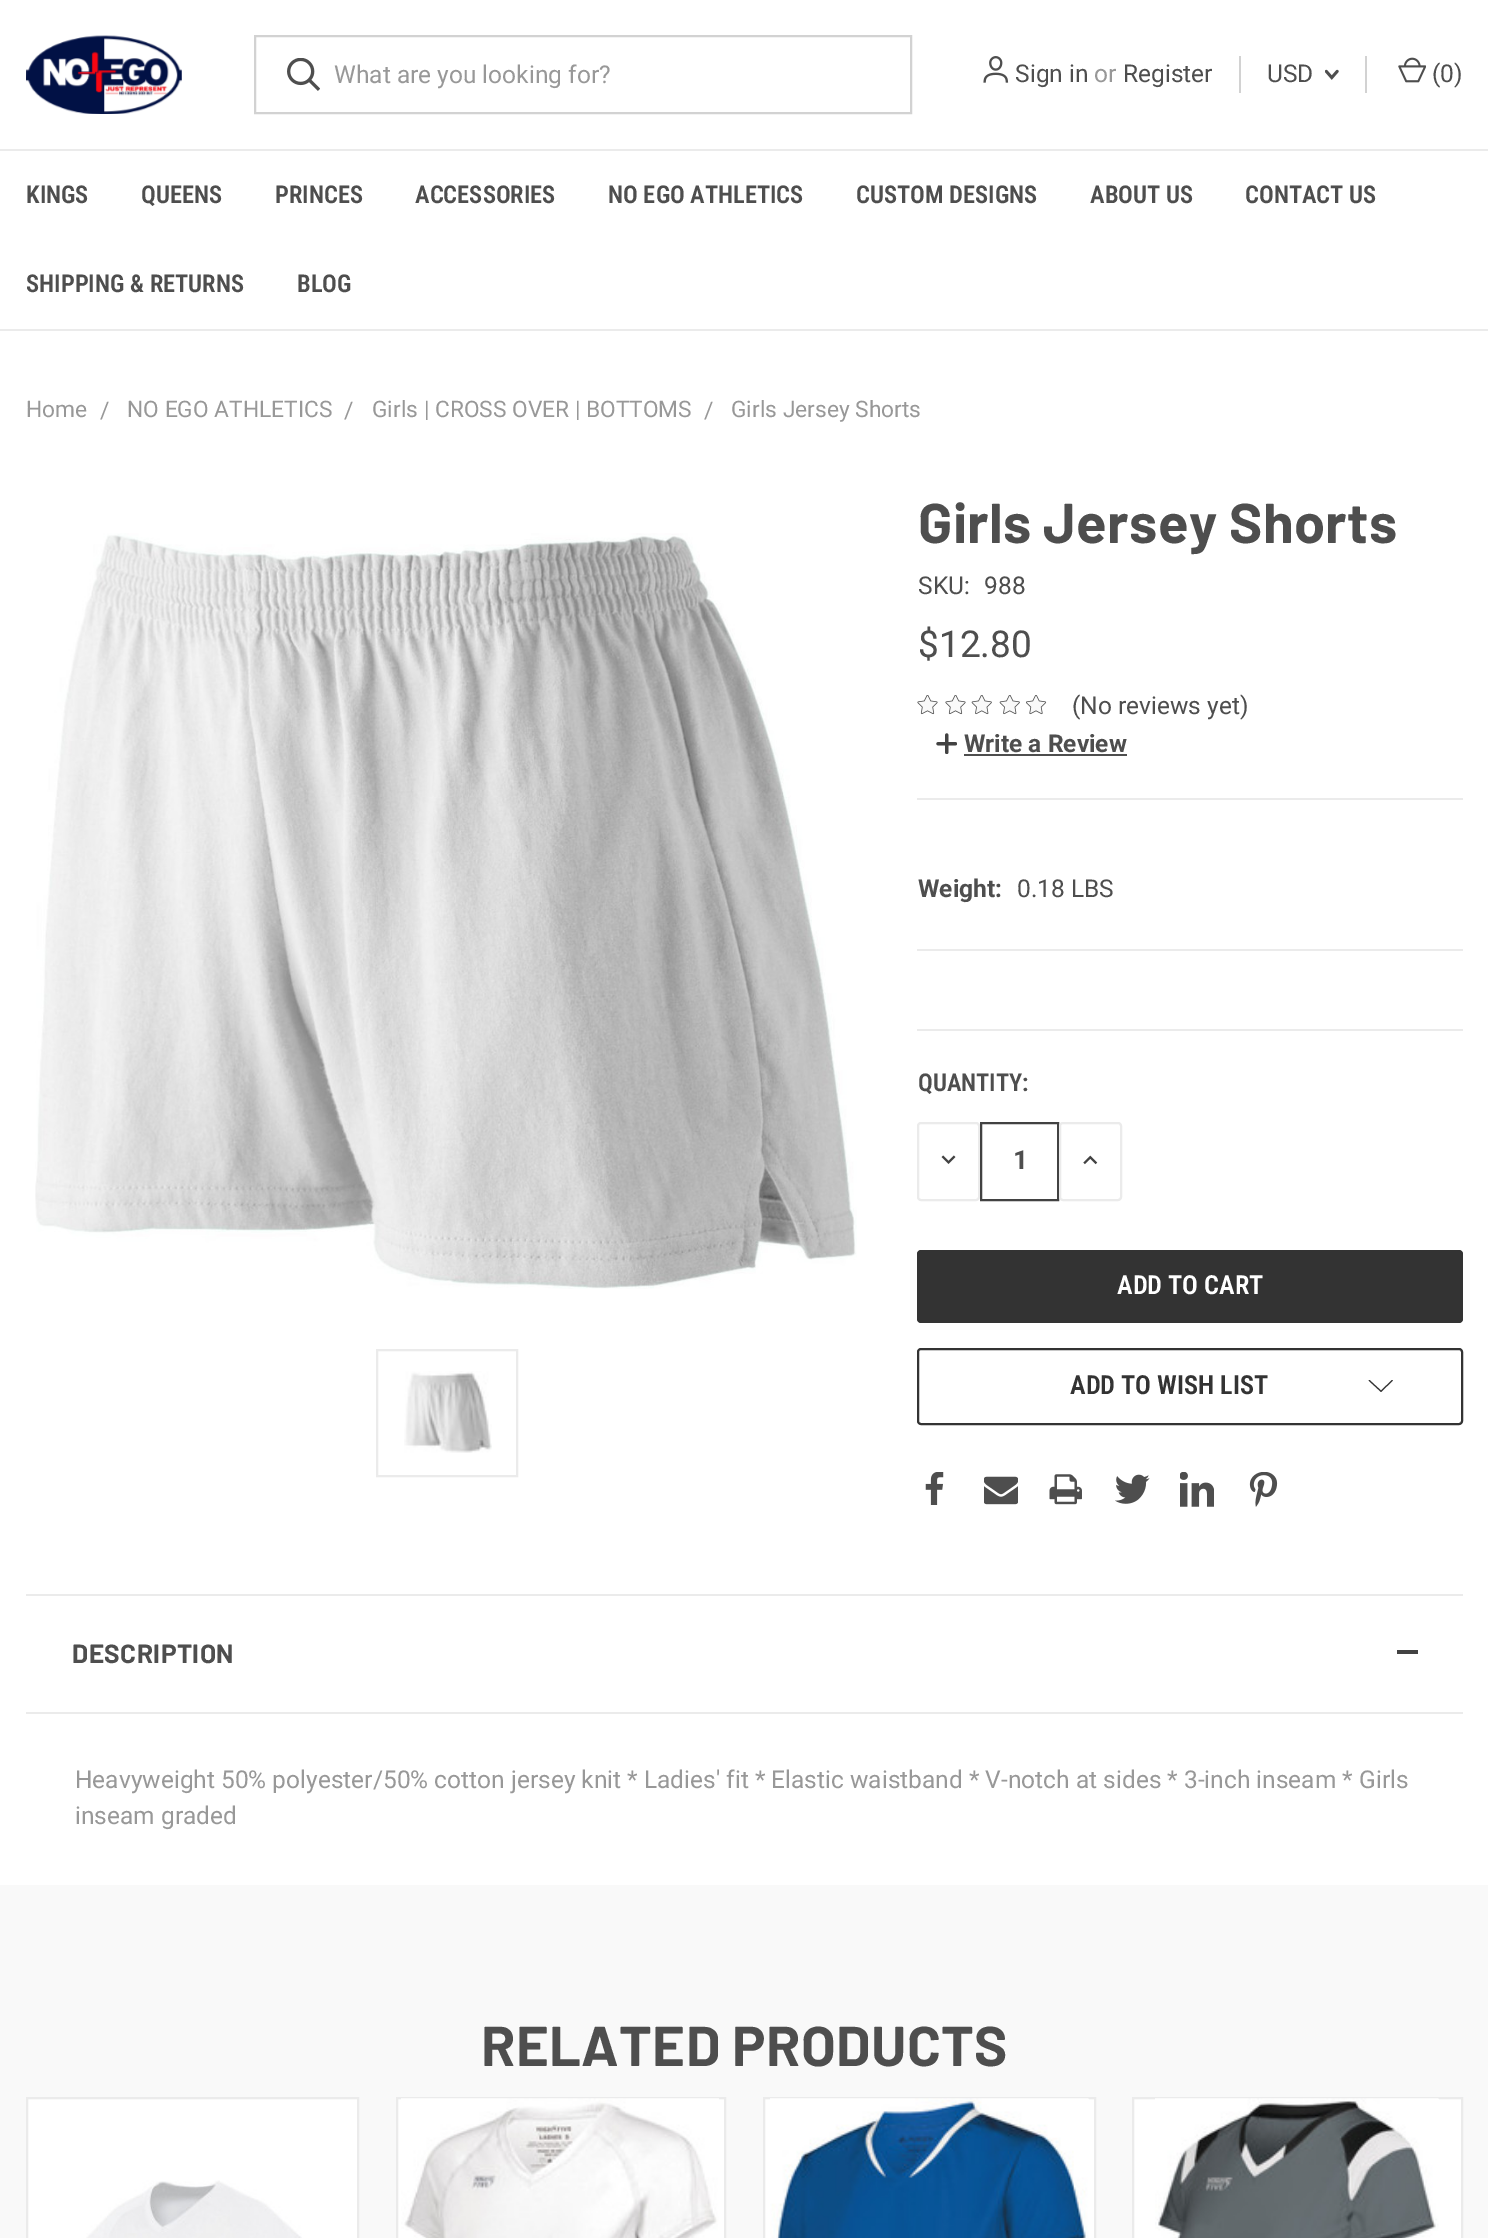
%!PS
<< /PageSize [1488 2238] >> setpagedevice
/mt/moveto load def
/li/lineto load def
/cp/closepath load def
/fl/fill load def
/st/stroke load def
/gs/gsave load def
/gr/grestore load def
/lw/setlinewidth load def
/co { dup -16 bitshift 255 div exch dup -8 bitshift 255 and 255 div exch 255 and 255 div setrgbcolor } def
/fn { [ exch dup neg 0 0 3 -1 roll 0 0 ] selectfont } def
/tx { co fn moveto show } def
/bx { co rectfill } def
/rr { 5 dict begin { /r /h /w /y /x } { exch def } forall
  x r add y moveto x w add y 2 copy h add r arct x w add y h add x 1 index r arct
  x y h add x y r arct x y 2 copy exch w add exch r arct closepath end } def
/im { 5 dict begin { /h /w /y /x /name } { exch def } forall
  gsave x y translate w h scale
  w h 8 [w 0 0 h 0 0] name (r) file false 3 colorimage grestore end } def
0 2238 translate 1 -1 scale
4 setmiterlimit
0 0 1488 2238 16#FFFFFF bx
(media/1.raw) 26 35 156 79 im
16#D2D2D2 co
2 lw
255 36 656 77 rectstroke
(media/2.raw) 287 58 33 33 im
(media/3.raw) 983 56 26 27 im
1239 56 2 37 16#D2D2D2 bx
(media/4.raw) 1325 69 14 11 im
1365 56 2 37 16#D2D2D2 bx
(media/5.raw) 1398 57 28 26 im
0 149 1488 2 16#EBEBEB bx
0 329 1488 2 16#EBEBEB bx
(media/6.raw) 35 533 822 756 im
377 1350 140 126 rectstroke
(media/7.raw) 404 1371 88 82 im
(media/8.raw) 917 695 21 20 im
(media/8.raw) 945 695 21 20 im
(media/9.raw) 971 695 21 20 im
(media/9.raw) 999 695 21 20 im
(media/10.raw) 1026 695 21 20 im
(media/11.raw) 936 733 21 21 im
964 754 163 2 16#4E4E4E bx
917 798 546 2 16#EBEBEB bx
917 949 546 2 16#EBEBEB bx
917 1029 546 2 16#EBEBEB bx
918 1123 61 77 3 rr st
(media/12.raw) 941 1155 15 9 im
16#424242 co
981 1123 77 77 rectstroke
16#EBEBEB co
1060 1123 61 77 3 rr st
(media/13.raw) 1083 1155 15 10 im
16#333333 co
917 1250 546 73 4 rr fl
918 1349 544 75 3 rr st
1381 1390.5 mt 1392 1380 li 1393 1380.5 li 1381 1392 li 1368.5 1380.5 li 1369.5 1380 li cp eofill
(media/14.raw) 925 1472 19 33 im
(media/15.raw) 984 1476 34 29 im
(media/16.raw) 1049 1474 33 31 im
(media/17.raw) 1115 1474 35 30 im
(media/18.raw) 1180 1472 34 35 im
(media/19.raw) 1249 1472 29 35 im
26 1594 1437 2 16#EBEBEB bx
26 1712 1437 2 16#EBEBEB bx
1397 1650 21 4 16#424242 bx
0 1885 1488 353 16#F9F9F9 bx
16#FFFFFF co
27 2098 mt 358 2098 li 358 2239 li 27 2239 li cp gs fl gr
16#EBEBEB co
st
(media/20.raw) 86 2180 216 58 im
16#FFFFFF co
397 2098 mt 725 2098 li 725 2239 li 397 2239 li cp gs fl gr
16#EBEBEB co
st
(media/21.raw) 401 2098 318 140 im
16#FFFFFF co
764 2098 mt 1095 2098 li 1095 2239 li 764 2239 li cp gs fl gr
16#EBEBEB co
st
(media/22.raw) 770 2098 319 140 im
16#FFFFFF co
1133 2098 mt 1462 2098 li 1462 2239 li 1133 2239 li cp gs fl gr
16#EBEBEB co
st
(media/23.raw) 1155 2098 284 140 im
(What are you looking for?) 334 83 /Roboto-Regular 24.5 16#989898 tx
(Sign in) 1015 82 /Roboto-Regular 24.5 16#4E4E4E tx
(or) 1094 82 /Roboto-Regular 24.5 16#989898 tx
(Register) 1123 82 /Roboto-Regular 24.5 16#4E4E4E tx
(USD) 1267 82 /Roboto-Regular 24.5 16#4E4E4E tx
(\(0\)) 1432 82 /Roboto-Regular 24.5 16#4E4E4E tx
(KINGS) 26 203 /RobotoCondensed-SemiBold 24.5 16#4E4E4E tx
(QUEENS) 141 203 /RobotoCondensed-SemiBold 24.5 16#4E4E4E tx
(PRINCES) 275 203 /RobotoCondensed-SemiBold 24.5 16#4E4E4E tx
(ACCESSORIES) 415 203 /RobotoCondensed-SemiBold 24.5 16#4E4E4E tx
(NO EGO ATHLETICS) 608 203 /RobotoCondensed-SemiBold 24.5 16#4E4E4E tx
(CUSTOM DESIGNS) 856 203 /RobotoCondensed-SemiBold 24.5 16#4E4E4E tx
(ABOUT US) 1090 203 /RobotoCondensed-SemiBold 24.5 16#4E4E4E tx
(CONTACT US) 1245 203 /RobotoCondensed-SemiBold 24.5 16#4E4E4E tx
(SHIPPING & RETURNS) 26 292 /RobotoCondensed-SemiBold 24.5 16#4E4E4E tx
(BLOG) 297 292 /RobotoCondensed-SemiBold 24.5 16#4E4E4E tx
(Home) 26 417 /Roboto-Regular 22.75 16#989898 tx
(/) 100 418 /Roboto-Regular 22.75 16#989898 tx
(NO EGO ATHLETICS) 127 417 /Roboto-Regular 22.75 16#989898 tx
(/) 344 418 /Roboto-Regular 22.75 16#989898 tx
(Girls | CROSS OVER | BOTTOMS) 372 417 /Roboto-Regular 22.75 16#989898 tx
(/) 704 418 /Roboto-Regular 22.75 16#989898 tx
(Girls Jersey Shorts) 731 417 /Roboto-Regular 22.75 16#989898 tx
/Barlow-Bold 56 fn
16#4E4E4E co
918 543 mt .4 0 (Girls Jersey Shorts) ashow
(SKU:) 918 594 /Roboto-Regular 24.5 16#4E4E4E tx
(988) 984 594 /Roboto-Regular 24.5 16#4E4E4E tx
($12.80) 918 657 /Roboto-Regular 37 16#4E4E4E tx
(\(No reviews yet\)) 1072 714 /Roboto-Regular 24.5 16#4E4E4E tx
(Write a Review) 964 752 /Roboto-Bold 24.5 16#4E4E4E tx
(Weight:) 918 897 /Roboto-Bold 24.5 16#4E4E4E tx
(0.18 LBS) 1017 897 /Roboto-Regular 24.5 16#4E4E4E tx
(QUANTITY:) 918 1091 /RobotoCondensed-SemiBold 24.5 16#4E4E4E tx
(1) 1013 1169 /Roboto-Bold 26.25 16#4E4E4E tx
(ADD TO CART) 1117 1294 /RobotoCondensed-SemiBold 26.25 16#FFFFFF tx
(ADD TO WISH LIST) 1070 1394 /RobotoCondensed-SemiBold 26.25 16#333333 tx
/Barlow-Bold 26.25 fn
16#4E4E4E co
72 1663 mt .4 0 (DESCRIPTION) ashow
(Heavyweight 50% polyester/50% cotton jersey knit * Ladies' fit * Elastic waistband * V-notch at sides * 3-inch inseam * Girls) 75 1788 /Roboto-Regular 24.5 16#989898 tx
(inseam graded) 75 1824 /Roboto-Regular 24.5 16#989898 tx
/Barlow-Bold 56 fn
16#4E4E4E co
481 2066 mt .4 0 (RELATED PRODUCTS) ashow
showpage
